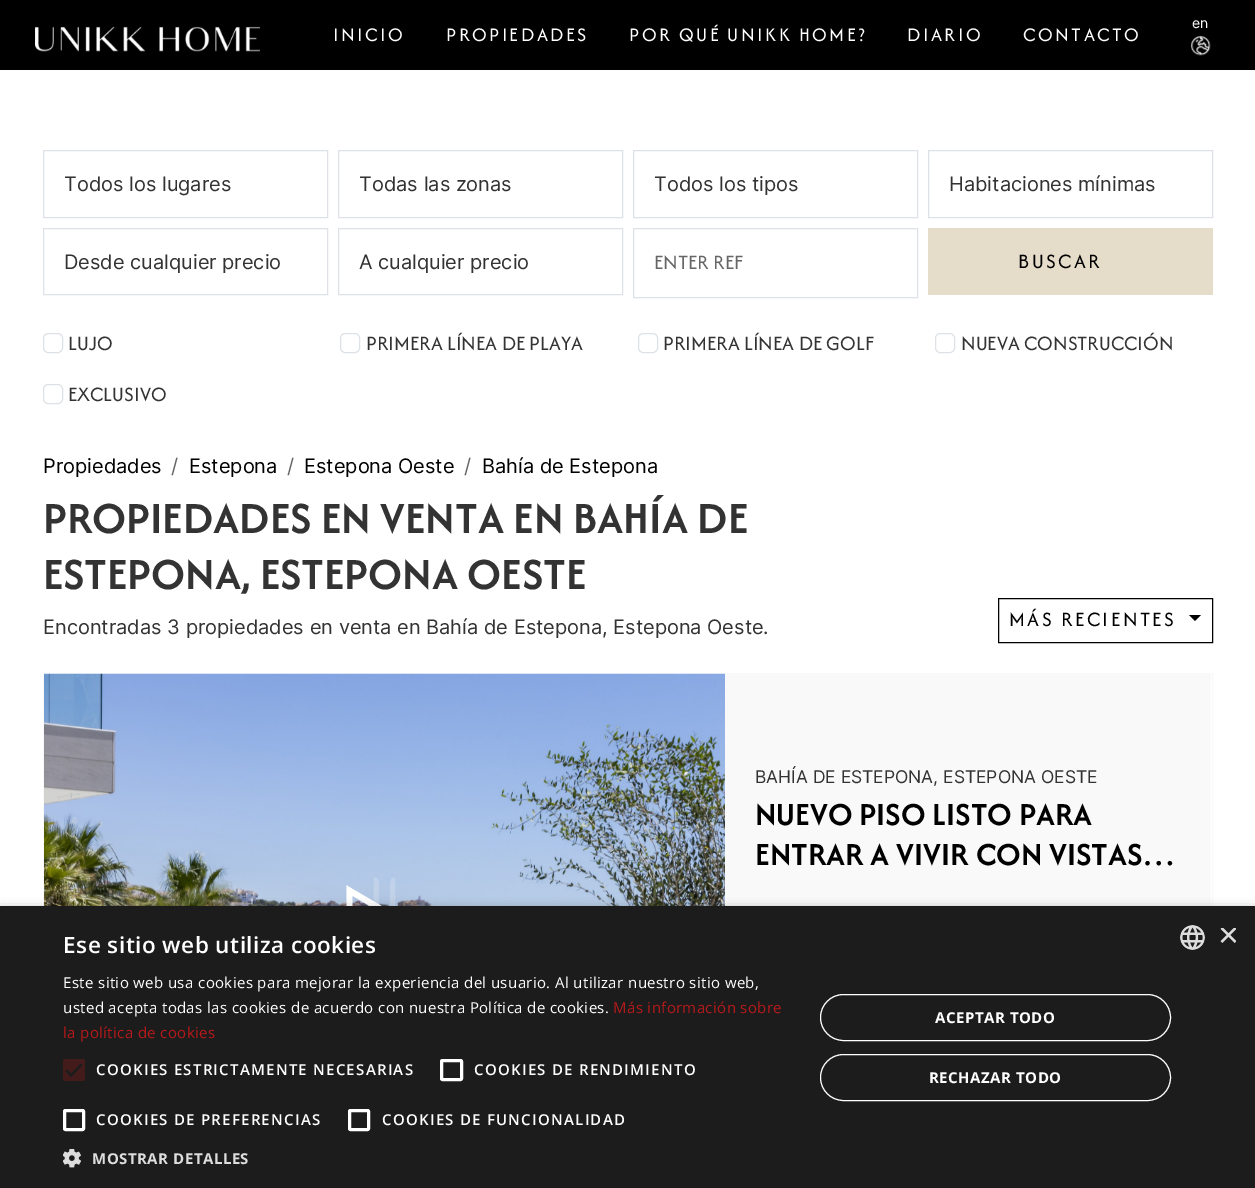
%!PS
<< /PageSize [1255 1188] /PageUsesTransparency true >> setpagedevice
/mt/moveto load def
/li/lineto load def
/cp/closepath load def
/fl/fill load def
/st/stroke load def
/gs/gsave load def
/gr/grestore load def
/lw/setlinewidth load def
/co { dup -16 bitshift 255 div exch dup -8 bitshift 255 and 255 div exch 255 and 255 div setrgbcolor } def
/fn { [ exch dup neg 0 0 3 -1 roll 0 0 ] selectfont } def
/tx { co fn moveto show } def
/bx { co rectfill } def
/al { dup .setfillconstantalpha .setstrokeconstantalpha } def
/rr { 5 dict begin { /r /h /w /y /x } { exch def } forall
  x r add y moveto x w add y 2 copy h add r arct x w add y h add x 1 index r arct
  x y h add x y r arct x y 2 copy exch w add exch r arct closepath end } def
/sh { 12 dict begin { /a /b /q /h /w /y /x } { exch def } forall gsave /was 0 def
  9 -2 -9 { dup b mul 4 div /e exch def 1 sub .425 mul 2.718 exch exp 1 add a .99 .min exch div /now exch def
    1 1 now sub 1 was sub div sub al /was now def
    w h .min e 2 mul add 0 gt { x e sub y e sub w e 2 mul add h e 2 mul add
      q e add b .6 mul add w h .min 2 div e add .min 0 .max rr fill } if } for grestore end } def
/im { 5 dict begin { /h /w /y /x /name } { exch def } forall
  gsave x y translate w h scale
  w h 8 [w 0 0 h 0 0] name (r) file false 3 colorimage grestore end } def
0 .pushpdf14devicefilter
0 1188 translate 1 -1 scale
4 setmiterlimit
0 0 1255 1188 16#FFFFFF bx
0 0 1255 70 16#000000 bx
(media/1.raw) 35 26 225 26 im
(media/2.raw) 1191 36 20 20 im
16#DEE2E6 co
43.5 150.5 284 67 rectstroke
338.5 150.5 284 67 rectstroke
633.5 150.5 284 67 rectstroke
928.5 150.5 284 67 rectstroke
43.5 228.5 284 66 rectstroke
338.5 228.5 284 66 rectstroke
633.5 228.5 284 69 rectstroke
928 228 285 67 16#E5DCC9 bx
16#DEE2E6 co
43.5 333.5 19 19 4.5 rr st
340.5 333.5 19 19 4.5 rr st
638.5 333.5 19 19 4.5 rr st
935.5 333.5 19 19 4.5 rr st
43.5 384.5 19 19 4.5 rr st
16#000000 co
998.5 598.5 214 44 rectstroke
1189 615 mt 1201 615 li 1195 621 li cp fl
16#F9F9F9 co
43.5 673.5 1169 511 rectstroke
(media/3.raw) 44 673 681 233 im
(media/4.raw) 346 885 36 21 im
725 674 486 232 16#F9F9F9 bx
16#000000 co
1 909 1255 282 0 5 .35 sh
0 906 1255 282 16#1C1C1C bx
16#441B1B co
63 1059 22 22 2.5 rr fl
16#1C1C1C co
2.3 lw
66.5 1070.5 mt 71 1075.5 li 81.5 1064.5 li st
16#FFFFFF co
3 lw
441.5 1060.5 20 19 1 rr st
64.5 1110.5 19 19 1 rr st
349.5 1110.5 19 19 1 rr st
(media/5.raw) 63 1149 18 19 im
1 lw
820.5 994.5 350 46 23 rr st
820.5 1054.5 350 46 23 rr st
(media/6.raw) 1180 925 25 25 im
/Afacad-Regular 20 fn
333 41 mt 2.5 0 (INICIO) ashow
446 41 mt 2.5 0 (PROPIEDADES) ashow
629 41 mt 2.5 0 (POR QUÉ UNIKK HOME?) ashow
907 41 mt 2.5 0 (DIARIO) ashow
1023 41 mt 2.5 0 (CONTACTO) ashow
(en) 1192 28 /Inter-Regular 14 16#FFFFFF tx
(Todos los lugares) 64 191 /Inter-Regular 20 16#333333 tx
(Todas las zonas) 359 191 /Inter-Regular 20 16#333333 tx
(Todos los tipos) 654 191 /Inter-Regular 20 16#333333 tx
(Habitaciones mínimas) 949 191 /Inter-Regular 20 16#333333 tx
(Desde cualquier precio) 64 269 /Inter-Regular 20 16#333333 tx
(A cualquier precio) 359 269 /Inter-Regular 20 16#333333 tx
(ENTER REF) 654 269 /Afacad-Regular 21.25 16#666666 tx
16#000000 co
1018 268 mt 2.5 0 (BUSCAR) ashow
(LUJO) 68 350 /Afacad-Regular 21.25 16#333333 tx
(PRIMERA LÍNEA DE PLAYA) 366 350 /Afacad-Regular 21.25 16#333333 tx
(PRIMERA LÍNEA DE GOLF) 663 350 /Afacad-Regular 21.25 16#333333 tx
(NUEVA CONSTRUCCIÓN) 961 350 /Afacad-Regular 21.25 16#333333 tx
(EXCLUSIVO) 68 401 /Afacad-Regular 21.25 16#333333 tx
(Propiedades) 43 473 /Inter-Regular 20 16#000000 tx
(/) 171 473 /Inter-Regular 20 16#666666 tx
(Estepona) 189 473 /Inter-Regular 20 16#000000 tx
(/) 287 473 /Inter-Regular 20 16#666666 tx
(Estepona Oeste) 304 473 /Inter-Regular 20 16#000000 tx
(/) 464 473 /Inter-Regular 20 16#666666 tx
(Bahía de Estepona) 482 473 /Inter-Regular 20 16#000000 tx
(PROPIEDADES EN VENTA EN BAHÍA DE) 43 533 /Afacad-SemiBold 46.3 16#333333 tx
(ESTEPONA, ESTEPONA OESTE) 43 589 /Afacad-SemiBold 46.3 16#333333 tx
(Encontradas 3 propiedades en venta en Bahía de Estepona, Estepona Oeste.) 43 634 /Inter-Regular 20 16#333333 tx
/Afacad-Regular 21.25 fn
16#000000 co
1009 626 mt 2.5 0 (MÁS RECIENTES) ashow
(BAHÍA DE ESTEPONA, ESTEPONA OESTE) 755 783 /Inter-Regular 17.5 16#333333 tx
(NUEVO PISO LISTO PARA) 755 825 /Afacad-SemiBold 33.5 16#000000 tx
(ENTRAR A VIVIR CON VISTAS…) 755 865 /Afacad-SemiBold 33.5 16#000000 tx
/OpenSans-SemiBold 22.5 fn
16#FFFFFF co
63 953 mt .5 0 (Ese sitio web utiliza cookies) ashow
/OpenSans-Regular 15 fn
63 988 mt .38 0 (Este sitio web usa cookies para mejorar la experiencia del usuario. Al utilizar nuestro sitio web,) ashow
63 1013 mt .38 0 (usted acepta todas las cookies de acuerdo con nuestra Política de cookies.) ashow
16#B5191A co
613 1013 mt .38 0 (Más información sobre) ashow
63 1038 mt .38 0 (la política de cookies) ashow
/OpenSans-SemiBold 15 fn
16#FFFFFF co
96 1075 mt 1.25 0 (COOKIES ESTRICTAMENTE NECESARIAS) ashow
474 1075 mt 1.25 0 (COOKIES DE RENDIMIENTO) ashow
96 1125 mt 1.25 0 (COOKIES DE PREFERENCIAS) ashow
382 1125 mt 1.25 0 (COOKIES DE FUNCIONALIDAD) ashow
/OpenSans-Bold 15 fn
16#DDDDDD co
92 1164 mt .5 0 (MOSTRAR DETALLES) ashow
16#FFFFFF co
935 1023 mt .5 0 (ACEPTAR TODO) ashow
929 1083 mt .5 0 (RECHAZAR TODO) ashow
gs
1218 928 18 18 rectclip
(×) 1218 947 /LiberationSans-Regular 36 16#DDDDDD tx
gr
.poppdf14devicefilter showpage
